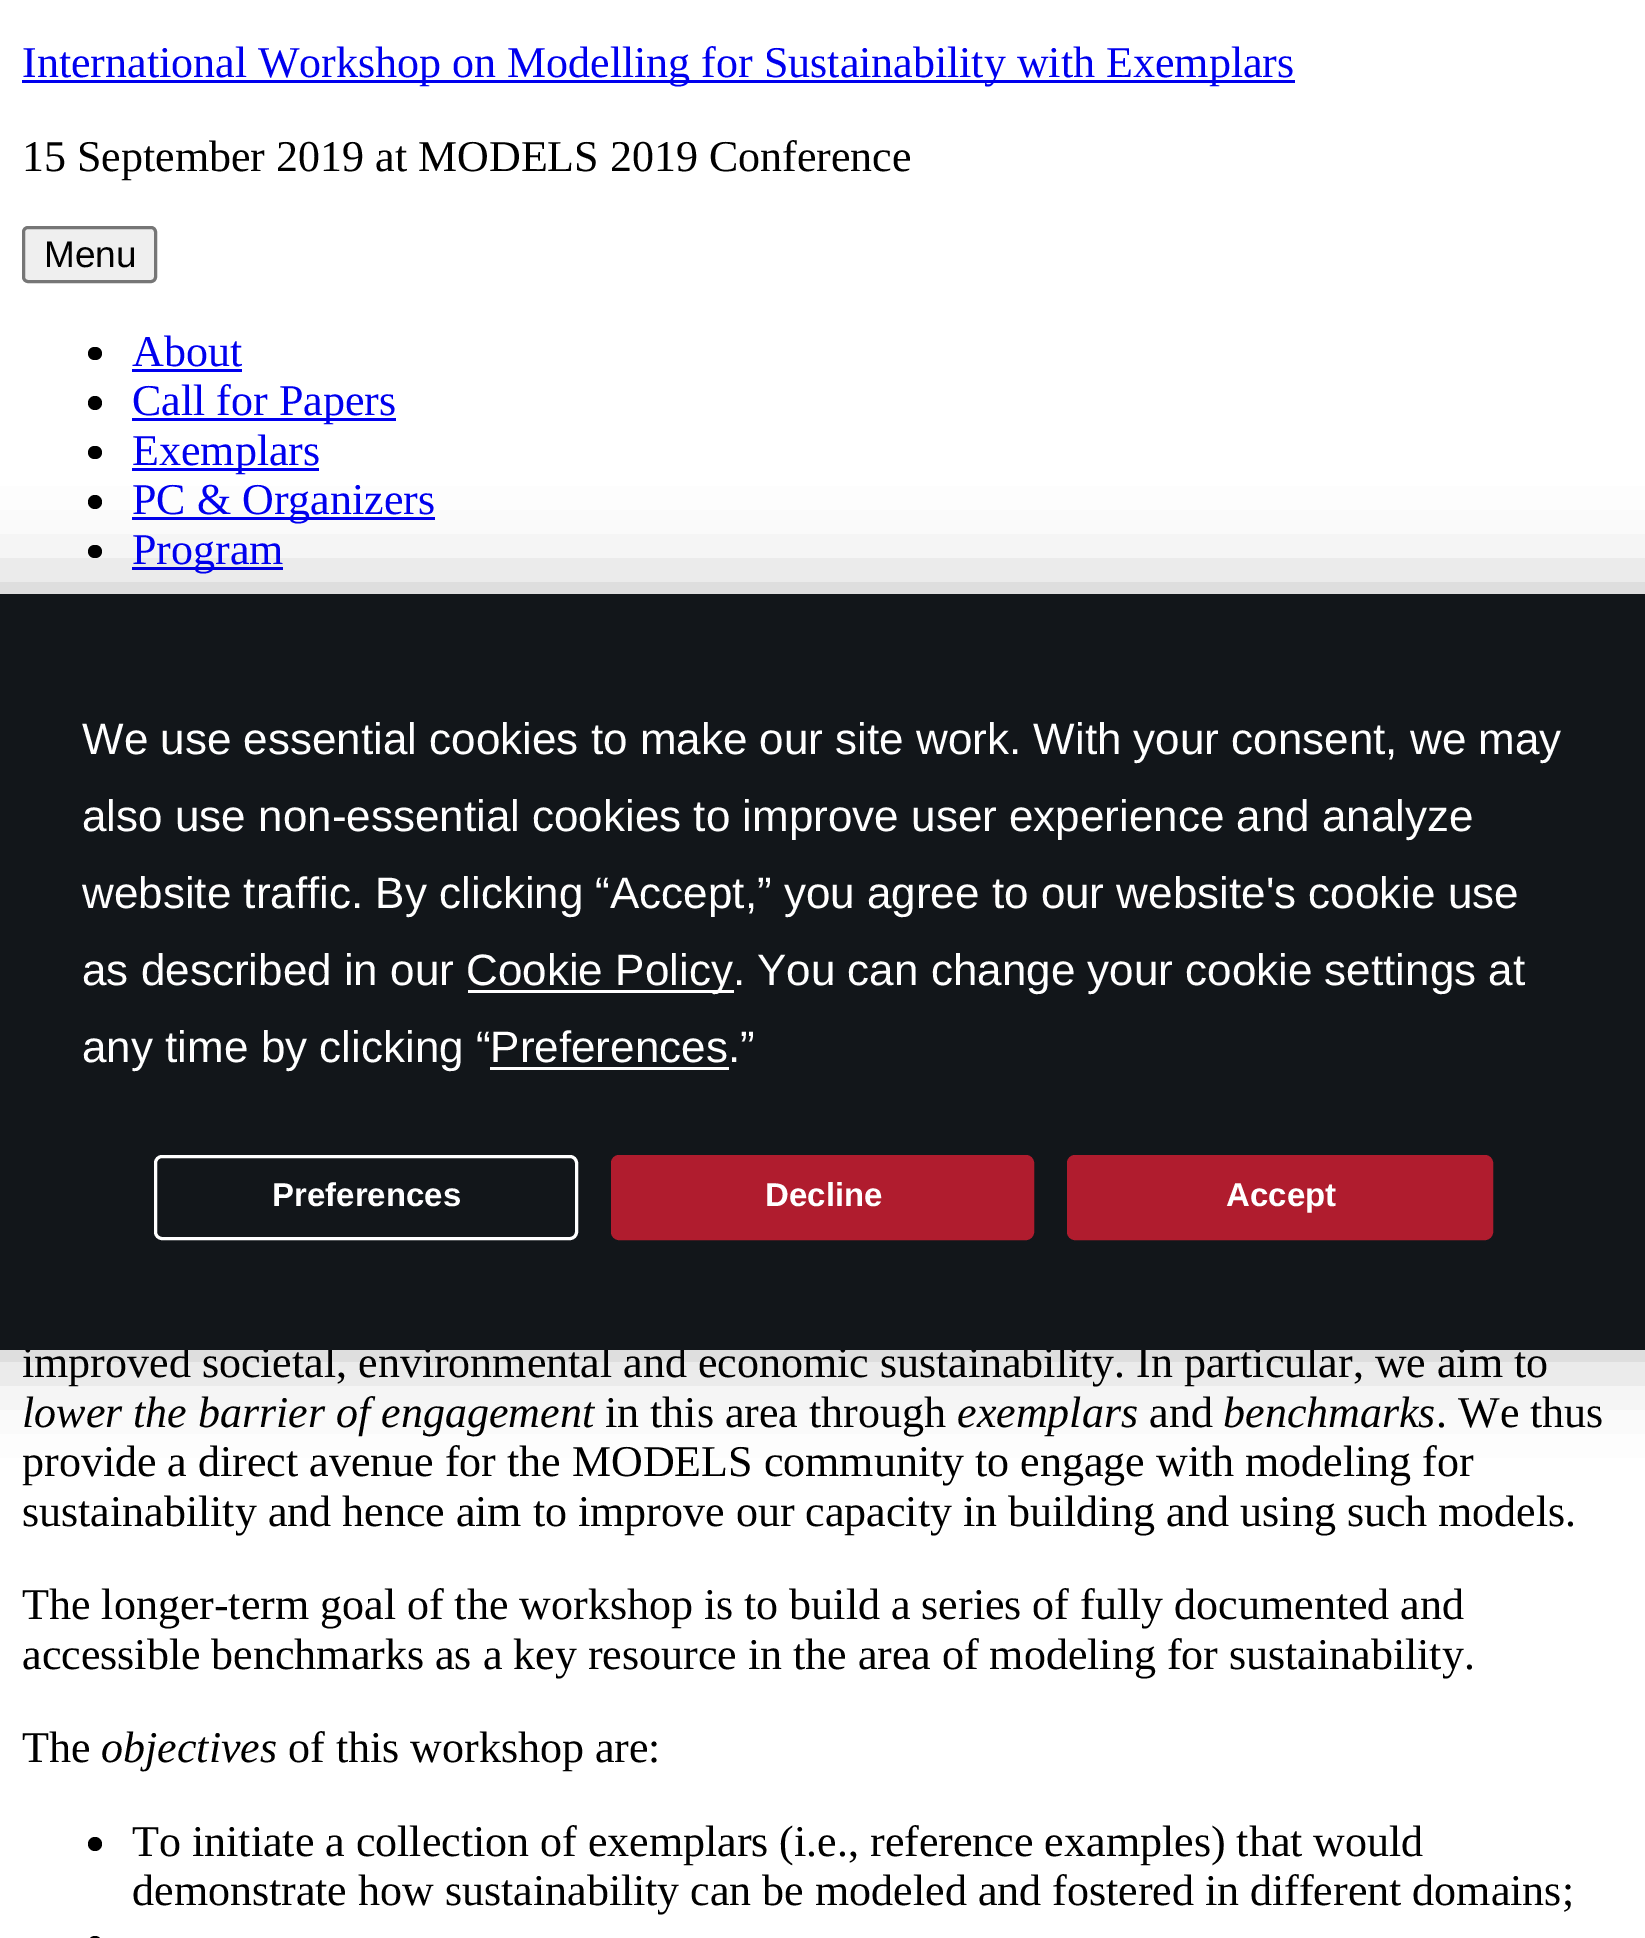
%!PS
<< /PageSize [1645 1938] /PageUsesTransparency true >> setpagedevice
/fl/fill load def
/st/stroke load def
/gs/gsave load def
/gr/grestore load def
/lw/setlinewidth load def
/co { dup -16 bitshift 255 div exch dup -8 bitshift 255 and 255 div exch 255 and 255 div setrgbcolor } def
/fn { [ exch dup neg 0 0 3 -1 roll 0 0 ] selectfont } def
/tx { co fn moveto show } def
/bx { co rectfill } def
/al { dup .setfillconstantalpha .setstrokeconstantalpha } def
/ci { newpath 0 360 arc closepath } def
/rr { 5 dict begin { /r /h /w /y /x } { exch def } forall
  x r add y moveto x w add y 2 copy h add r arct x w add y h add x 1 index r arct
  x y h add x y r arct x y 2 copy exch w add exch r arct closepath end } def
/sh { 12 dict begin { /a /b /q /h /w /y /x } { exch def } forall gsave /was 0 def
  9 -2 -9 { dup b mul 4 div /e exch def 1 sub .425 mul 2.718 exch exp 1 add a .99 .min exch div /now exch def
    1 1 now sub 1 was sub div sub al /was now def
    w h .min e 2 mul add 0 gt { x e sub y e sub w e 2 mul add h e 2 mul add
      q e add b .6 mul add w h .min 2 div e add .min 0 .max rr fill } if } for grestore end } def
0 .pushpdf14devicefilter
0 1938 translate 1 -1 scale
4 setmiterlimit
0 0 1645 1938 16#FFFFFF bx
22 80 1273 3 16#0000EE bx
16#EFEFEF co
23.5 227.5 132 54 4.5 rr gs fl gr
16#767676 co
3 lw
st
16#000000 co
88 347 14 13 6.5 rr fl
132 369 110 3 16#0000EE bx
16#000000 co
95 403 7 ci fl
132 418 264 3 16#0000EE bx
16#000000 co
88 446 14 13 6.5 rr fl
132 468 187 3 16#0000EE bx
16#000000 co
95 502 7 ci fl
132 517 303 3 16#0000EE bx
16#000000 co
88 545 14 13 6.5 rr fl
132 567 151 3 16#0000EE bx
16#000000 co
95 1844 7 ci fl
88 1936 14 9 7 rr fl
-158 594 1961 756 14 48 .25 sh
(International Workshop on Modelling for Sustainability with Exemplars) 22 77 /LiberationSerif-Regular 44 16#0000EE tx
(15 September 2019 at MODELS 2019 Conference) 22 171 /LiberationSerif-Regular 44 16#000000 tx
(Menu) 44 267 /LiberationSans-Regular 37 16#000000 tx
(About) 132 366 /LiberationSerif-Regular 44 16#0000EE tx
(Call for Papers) 132 415 /LiberationSerif-Regular 44 16#0000EE tx
(Exemplars) 132 465 /LiberationSerif-Regular 44 16#0000EE tx
(PC & Organizers) 132 514 /LiberationSerif-Regular 44 16#0000EE tx
(Program) 132 564 /LiberationSerif-Regular 44 16#0000EE tx
(improved societal, environmental and economic sustainability. In particular, we aim to) 22 1377 /LiberationSerif-Regular 44 16#000000 tx
(lower the barrier of engagement) 22 1427 /LiberationSerif-Italic 44 16#000000 tx
(in this area through) 605 1427 /LiberationSerif-Regular 44 16#000000 tx
(exemplars) 957 1427 /LiberationSerif-Italic 44 16#000000 tx
(and) 1149 1427 /LiberationSerif-Regular 44 16#000000 tx
(benchmarks) 1223 1427 /LiberationSerif-Italic 44 16#000000 tx
(. We thus) 1436 1427 /LiberationSerif-Regular 44 16#000000 tx
(provide a direct avenue for the MODELS community to engage with modeling for) 22 1476 /LiberationSerif-Regular 44 16#000000 tx
(sustainability and hence aim to improve our capacity in building and using such models.) 22 1526 /LiberationSerif-Regular 44 16#000000 tx
(The longer-term goal of the workshop is to build a series of fully documented and) 22 1619 /LiberationSerif-Regular 44 16#000000 tx
(accessible benchmarks as a key resource in the area of modeling for sustainability.) 22 1669 /LiberationSerif-Regular 44 16#000000 tx
(The) 22 1762 /LiberationSerif-Regular 44 16#000000 tx
(objectives) 101 1762 /LiberationSerif-Italic 44 16#000000 tx
(of this workshop are:) 288 1762 /LiberationSerif-Regular 44 16#000000 tx
(To initiate a collection of exemplars \(i.e., reference examples\) that would) 132 1856 /LiberationSerif-Regular 44 16#000000 tx
(demonstrate how sustainability can be modeled and fostered in different domains;) 132 1905 /LiberationSerif-Regular 44 16#000000 tx
0 594 1645 756 16#12161A bx
(We use essential cookies to make our site work. With your consent, we may) 82 754 /LiberationSans-Regular 44 16#FFFFFF tx
(also use non-essential cookies to improve user experience and analyze) 82 831 /LiberationSans-Regular 44 16#FFFFFF tx
(website traffic. By clicking “Accept,” you agree to our website's cookie use) 82 908 /LiberationSans-Regular 44 16#FFFFFF tx
(as described in our) 82 985 /LiberationSans-Regular 44 16#FFFFFF tx
468 990 266 3 16#FFFFFF bx
(Cookie Policy. You can change your cookie settings at) 466 985 /LiberationSans-Regular 44 16#FFFFFF tx
(any time by clicking “Preferences.”) 82 1062 /LiberationSans-Regular 44 16#FFFFFF tx
490 1067 239 3 16#FFFFFF bx
155.5 1156.5 421 82 6.5 rr st
(Preferences) 272 1206 /LiberationSans-Bold 33 16#FFFFFF tx
16#B01C2E co
612.5 1156.5 420 82 6.5 rr gs fl gr
st
(Decline) 765 1206 /LiberationSans-Bold 33 16#FFFFFF tx
16#B01C2E co
1068.5 1156.5 423 82 6.5 rr gs fl gr
st
(Accept) 1226 1206 /LiberationSans-Bold 33 16#FFFFFF tx
.poppdf14devicefilter showpage
